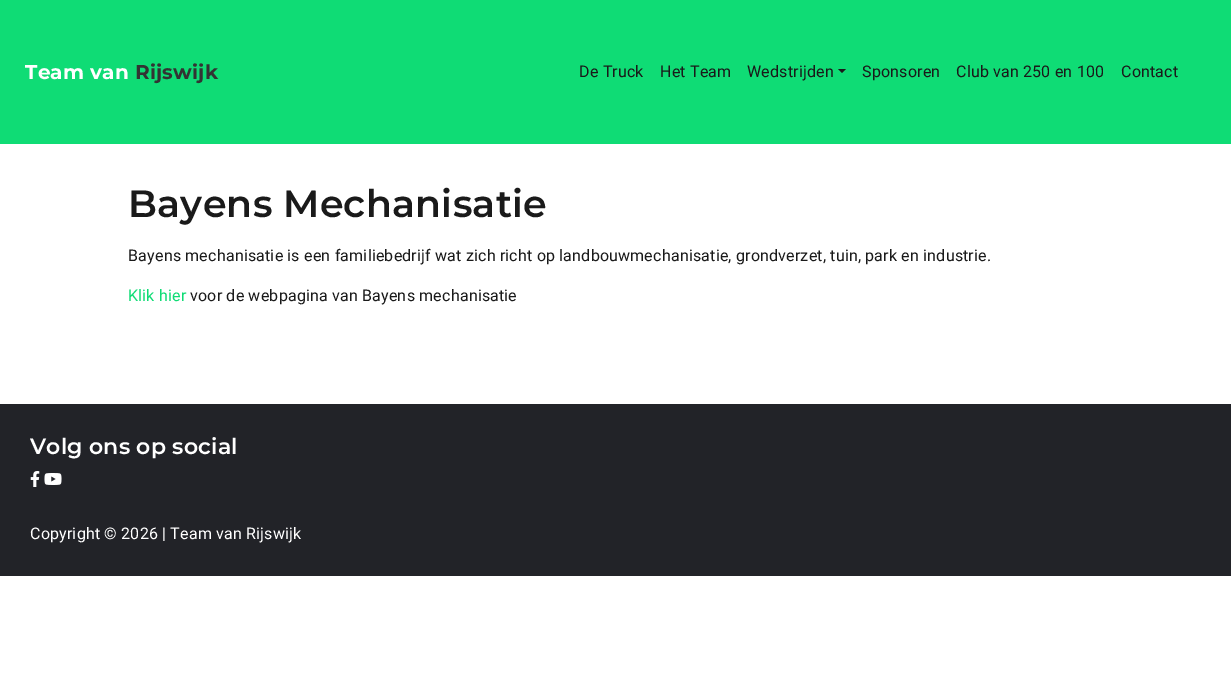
%!PS
<< /PageSize [1231 685] >> setpagedevice
/mt/moveto load def
/li/lineto load def
/cp/closepath load def
/fl/fill load def
/co { dup -16 bitshift 255 div exch dup -8 bitshift 255 and 255 div exch 255 and 255 div setrgbcolor } def
/fn { [ exch dup neg 0 0 3 -1 roll 0 0 ] selectfont } def
/bx { co rectfill } def
/im { 5 dict begin { /h /w /y /x /name } { exch def } forall
  gsave x y translate w h scale
  w h 8 [w 0 0 h 0 0] name (r) file false 3 colorimage grestore end } def
0 685 translate 1 -1 scale
4 setmiterlimit
0 0 1231 685 16#FFFFFF bx
0 0 1231 144 16#0FDC75 bx
16#1A1A1A co
838 69 mt 846 69 li 842 73 li cp fl
0 404 1231 172 16#222328 bx
(media/1.raw) 30 471 10 16 im
(media/2.raw) 44 473 18 12 im
/Montserrat-Bold 20 fn
16#FFFFFF co
25 79 mt .2 0 (Team van) ashow
16#333333 co
135 79 mt .2 0 (Rijswijk) ashow
/Roboto-Regular 16 fn
16#1A1A1A co
579 77 mt .2 0 (De Truck) ashow
660 77 mt .2 0 (Het Team) ashow
747 77 mt .2 0 (Wedstrijden) ashow
862 77 mt .2 0 (Sponsoren) ashow
956 77 mt .2 0 (Club van 250 en 100) ashow
1121 77 mt .2 0 (Contact) ashow
/Montserrat-SemiBold 38 fn
128 217 mt .2 0 (Bayens Mechanisatie) ashow
/Roboto-Regular 16 fn
128 261 mt .2 0 (Bayens mechanisatie is een familiebedrijf wat zich richt op landbouwmechanisatie, grondverzet, tuin, park en industrie.) ashow
16#0FDC75 co
128 301 mt .2 0 (Klik hier) ashow
16#1A1A1A co
190 301 mt .2 0 (voor de webpagina van Bayens mechanisatie) ashow
/Montserrat-SemiBold 22 fn
16#FFFFFF co
30 454 mt .2 0 (Volg ons op social) ashow
/Roboto-Regular 16 fn
30 539 mt .2 0 (Copyright © 2026 | Team van Rijswijk) ashow
showpage
